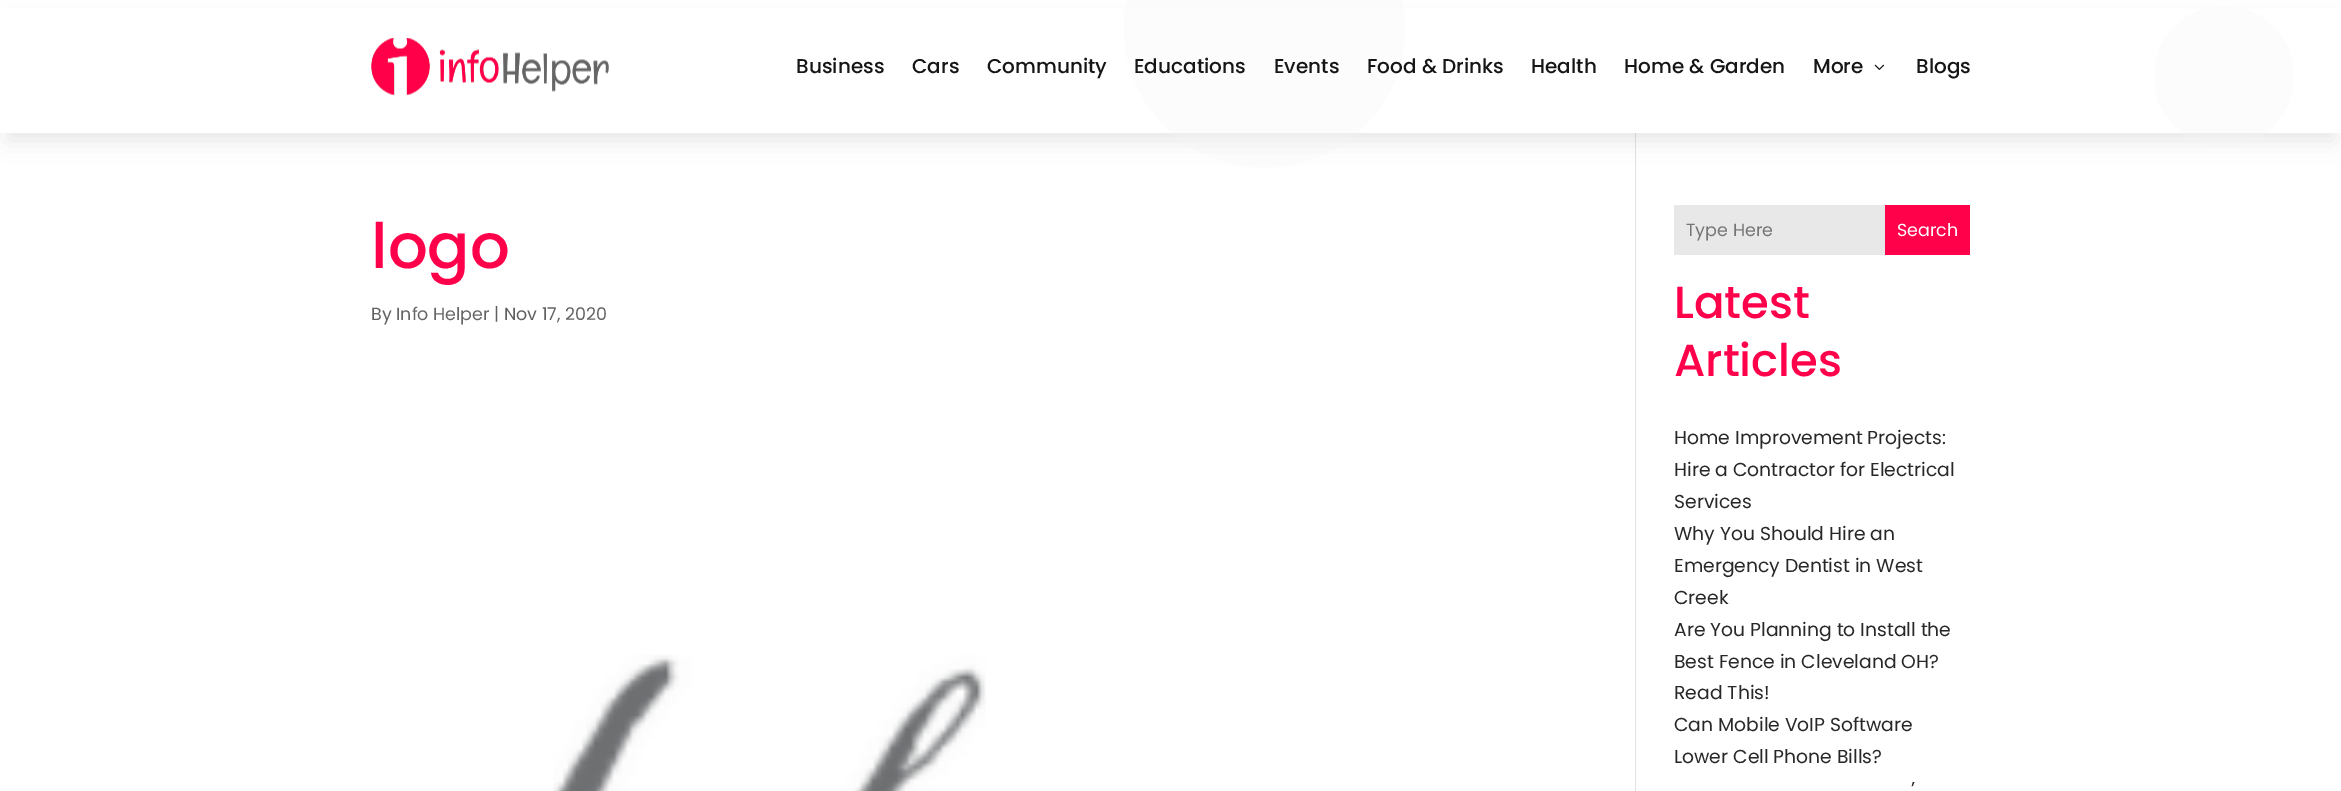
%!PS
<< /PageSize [2341 791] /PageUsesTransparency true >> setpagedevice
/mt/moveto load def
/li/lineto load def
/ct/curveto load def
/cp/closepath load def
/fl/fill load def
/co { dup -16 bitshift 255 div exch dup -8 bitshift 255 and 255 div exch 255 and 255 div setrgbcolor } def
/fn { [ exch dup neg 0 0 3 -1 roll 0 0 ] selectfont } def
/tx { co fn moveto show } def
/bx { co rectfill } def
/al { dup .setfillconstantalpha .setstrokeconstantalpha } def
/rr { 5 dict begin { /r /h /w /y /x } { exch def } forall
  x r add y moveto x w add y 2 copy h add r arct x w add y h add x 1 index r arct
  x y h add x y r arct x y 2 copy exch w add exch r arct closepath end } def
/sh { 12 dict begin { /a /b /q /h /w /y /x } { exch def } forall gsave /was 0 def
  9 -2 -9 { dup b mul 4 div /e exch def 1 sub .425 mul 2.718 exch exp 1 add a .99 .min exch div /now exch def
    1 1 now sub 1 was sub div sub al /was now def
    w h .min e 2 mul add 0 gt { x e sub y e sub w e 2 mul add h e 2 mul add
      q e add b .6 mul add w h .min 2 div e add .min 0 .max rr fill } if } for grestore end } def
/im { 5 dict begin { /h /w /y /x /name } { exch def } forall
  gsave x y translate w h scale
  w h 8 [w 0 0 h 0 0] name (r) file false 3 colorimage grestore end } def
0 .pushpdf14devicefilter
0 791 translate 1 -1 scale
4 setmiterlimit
0 0 2341 791 16#FFFFFF bx
1635 133 1 658 16#E2E2E2 bx
16#000000 co
8 23 2326 117 0 11 .1 sh
0 9 2341 124 16#FFFFFF bx
0.3 al
16#F5F5F5 co
1124 21 mt 1127 -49 1183 -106 1252 -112 ct 1276 -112 li 1348 -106 1405 -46 1405 28 ct 1405 106 1342 168 1264 168 ct 1189 168 1128 109 1124 35 ct cp fl
2224 6 mt 2263 6 2294 38 2294 76 ct 2294 112 2268 141 2234 146 ct 2214 146 li 2181 141 2155 113 2154 79 ct 2154 74 li 2155 36 2186 6 2224 6 ct cp fl
1 al
(media/1.raw) 371 38 238 57 im
(media/2.raw) 1874 64 10 6 im
(media/3.raw) 553 654 433 137 im
1674 205 211 50 16#E8E8E8 bx
1885 205 85 50 16#FF004B bx
(Business) 796 73 /Poppins-Medium 20 16#161616 tx
(Cars) 912 73 /Poppins-Medium 20 16#161616 tx
(Community) 987 73 /Poppins-Medium 20 16#161616 tx
(Educations) 1134 73 /Poppins-Medium 20 16#161616 tx
(Events) 1274 73 /Poppins-Medium 20 16#161616 tx
(Food & Drinks) 1367 73 /Poppins-Medium 20 16#161616 tx
(Health) 1531 73 /Poppins-Medium 20 16#161616 tx
(Home & Garden) 1624 73 /Poppins-Medium 20 16#161616 tx
(More) 1813 73 /Poppins-Medium 20 16#161616 tx
(Blogs) 1916 73 /Poppins-Medium 20 16#161616 tx
(logo) 371 268 /Poppins-Medium 62.5 16#FF004B tx
(By) 371 320 /Poppins-Regular 17.5 16#606060 tx
(Info Helper) 396 320 /Poppins-Regular 17.5 16#666666 tx
(| Nov 17, 2020) 494 320 /Poppins-Regular 17.5 16#606060 tx
(Type Here) 1686 236 /Poppins-Regular 17.5 16#757575 tx
(Search) 1897 236 /Poppins-Regular 17.5 16#FFFFFF tx
(Latest) 1674 318 /Poppins-Medium 45 16#FF004B tx
(Articles) 1674 376 /Poppins-Medium 45 16#FF004B tx
(Home Improvement Projects:) 1674 444 /Poppins-Regular 18.75 16#282828 tx
(Hire a Contractor for Electrical) 1674 476 /Poppins-Regular 18.75 16#282828 tx
(Services) 1674 508 /Poppins-Regular 18.75 16#282828 tx
(Why You Should Hire an) 1674 540 /Poppins-Regular 18.75 16#282828 tx
(Emergency Dentist in West) 1674 572 /Poppins-Regular 18.75 16#282828 tx
(Creek) 1674 604 /Poppins-Regular 18.75 16#282828 tx
(Are You Planning to Install the) 1674 636 /Poppins-Regular 18.75 16#282828 tx
(Best Fence in Cleveland OH?) 1674 668 /Poppins-Regular 18.75 16#282828 tx
(Read This!) 1674 699 /Poppins-Regular 18.75 16#282828 tx
(Can Mobile VoIP Software) 1674 731 /Poppins-Regular 18.75 16#282828 tx
(Lower Cell Phone Bills?) 1674 763 /Poppins-Regular 18.75 16#282828 tx
(’) 1911 795 /Poppins-Regular 18.75 16#282828 tx
.poppdf14devicefilter showpage
